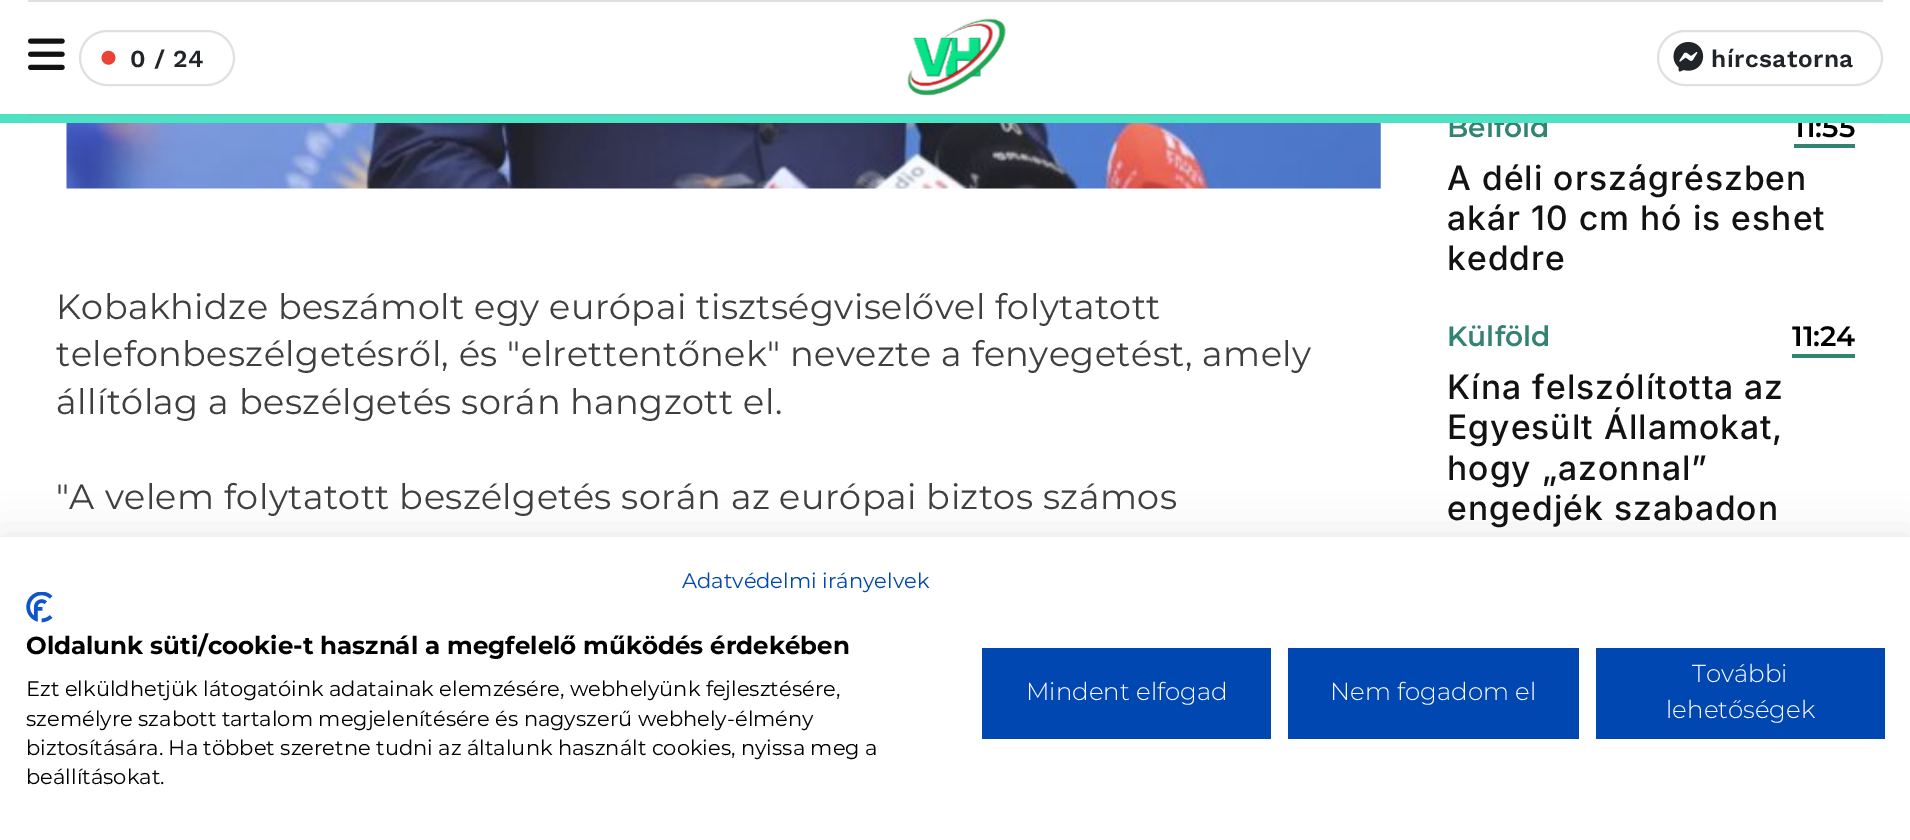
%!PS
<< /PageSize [1910 840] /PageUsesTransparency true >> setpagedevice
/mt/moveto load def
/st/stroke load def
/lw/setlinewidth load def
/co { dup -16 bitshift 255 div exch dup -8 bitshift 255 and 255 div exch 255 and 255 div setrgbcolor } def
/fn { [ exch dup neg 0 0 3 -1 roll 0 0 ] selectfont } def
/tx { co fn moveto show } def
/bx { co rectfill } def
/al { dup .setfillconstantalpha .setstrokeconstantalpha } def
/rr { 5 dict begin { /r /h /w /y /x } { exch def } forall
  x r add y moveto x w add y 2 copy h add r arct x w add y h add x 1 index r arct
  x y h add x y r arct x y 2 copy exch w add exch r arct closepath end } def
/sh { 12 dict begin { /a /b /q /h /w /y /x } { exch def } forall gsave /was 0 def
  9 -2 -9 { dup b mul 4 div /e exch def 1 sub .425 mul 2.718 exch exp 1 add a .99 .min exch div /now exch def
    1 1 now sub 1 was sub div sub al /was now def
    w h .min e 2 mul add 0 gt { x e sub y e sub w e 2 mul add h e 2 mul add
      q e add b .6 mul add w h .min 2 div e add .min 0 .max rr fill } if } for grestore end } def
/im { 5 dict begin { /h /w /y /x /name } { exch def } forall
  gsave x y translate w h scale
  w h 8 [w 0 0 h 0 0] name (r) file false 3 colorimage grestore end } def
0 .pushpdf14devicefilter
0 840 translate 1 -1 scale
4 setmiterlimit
0 0 1910 840 16#FFFFFF bx
28 0 1855 2 16#E0E0E0 bx
(media/1.raw) 28 38 37 32 im
2 lw
80 31 154 54 27 rr st
(media/2.raw) 101 50 15 15 im
(media/3.raw) 907 18 99 78 im
1658 31 224 54 27 rr st
(media/4.raw) 1673 41 31 31 im
(media/5.raw) 66 123 1315 66 im
1794 144 61 4 16#338373 bx
1792 354 63 4 16#338373 bx
16#000000 co
0 537 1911 303 0 21 .1 sh
0 537 1910 303 16#FFFFFF bx
(media/6.raw) 26 592 27 31 im
982 648 289 91 16#0047B2 bx
1288 648 291 91 16#0047B2 bx
1596 648 289 91 16#0047B2 bx
/WorkSans-SemiBold 24.5 fn
16#212529 co
130 67 mt .42 0 (0 / 24) ashow
1711 67 mt .42 0 (hírcsatorna) ashow
/Montserrat-Regular 35 fn
16#3F3F3F co
56 319 mt .42 0 (Kobakhidze beszámolt egy európai tisztségviselővel folytatott) ashow
56 366 mt .42 0 (telefonbeszélgetésről, és "elrettentőnek" nevezte a fenyegetést, amely) ashow
56 414 mt .42 0 (állítólag a beszélgetés során hangzott el.) ashow
56 509 mt .42 0 ("A velem folytatott beszélgetés során az európai biztos számos) ashow
(Belföld) 1447 137 /Montserrat-SemiBold 28 16#338373 tx
(11:55) 1794 137 /Montserrat-SemiBold 28 16#000000 tx
0 114 1910 9 16#4CE2C4 bx
28 114 1855 2 16#60D1BA bx
/Inter-Medium 33.6 fn
16#121212 co
1447 190 mt 1.05 0 (A déli országrészben) ashow
1447 230 mt 1.05 0 (akár 10 cm hó is eshet) ashow
1447 270 mt 1.05 0 (keddre) ashow
(Külföld) 1447 346 /Montserrat-SemiBold 28 16#338373 tx
(11:24) 1792 346 /Montserrat-SemiBold 28 16#000000 tx
/Inter-Medium 33.6 fn
16#121212 co
1447 399 mt 1.05 0 (Kína felszólította az) ashow
1447 439 mt 1.05 0 (Egyesült Államokat,) ashow
1447 480 mt 1.05 0 (hogy „azonnal”) ashow
1447 520 mt 1.05 0 (engedjék szabadon) ashow
(Adatvédelmi irányelvek) 682 588 /Montserrat-Regular 21 16#0047B2 tx
(Oldalunk süti/cookie-t használ a megfelelő működés érdekében) 26 654 /Montserrat-Bold 24.5 16#000000 tx
(Ezt elküldhetjük látogatóink adatainak elemzésére, webhelyünk fejlesztésére,) 26 696 /Montserrat-Regular 21 16#000000 tx
(személyre szabott tartalom megjelenítésére és nagyszerű webhely-élmény) 26 726 /Montserrat-Regular 21 16#000000 tx
(biztosítására. Ha többet szeretne tudni az általunk használt cookies, nyissa meg a) 26 755 /Montserrat-Regular 21 16#000000 tx
(beállításokat.) 26 784 /Montserrat-Regular 21 16#000000 tx
(Mindent elfogad) 1026 700 /Montserrat-Light 24.5 16#FFFFFF tx
(Nem fogadom el) 1330 700 /Montserrat-Light 24.5 16#FFFFFF tx
(További) 1692 682 /Montserrat-Light 24.5 16#FFFFFF tx
(lehetőségek) 1666 718 /Montserrat-Light 24.5 16#FFFFFF tx
.poppdf14devicefilter showpage
